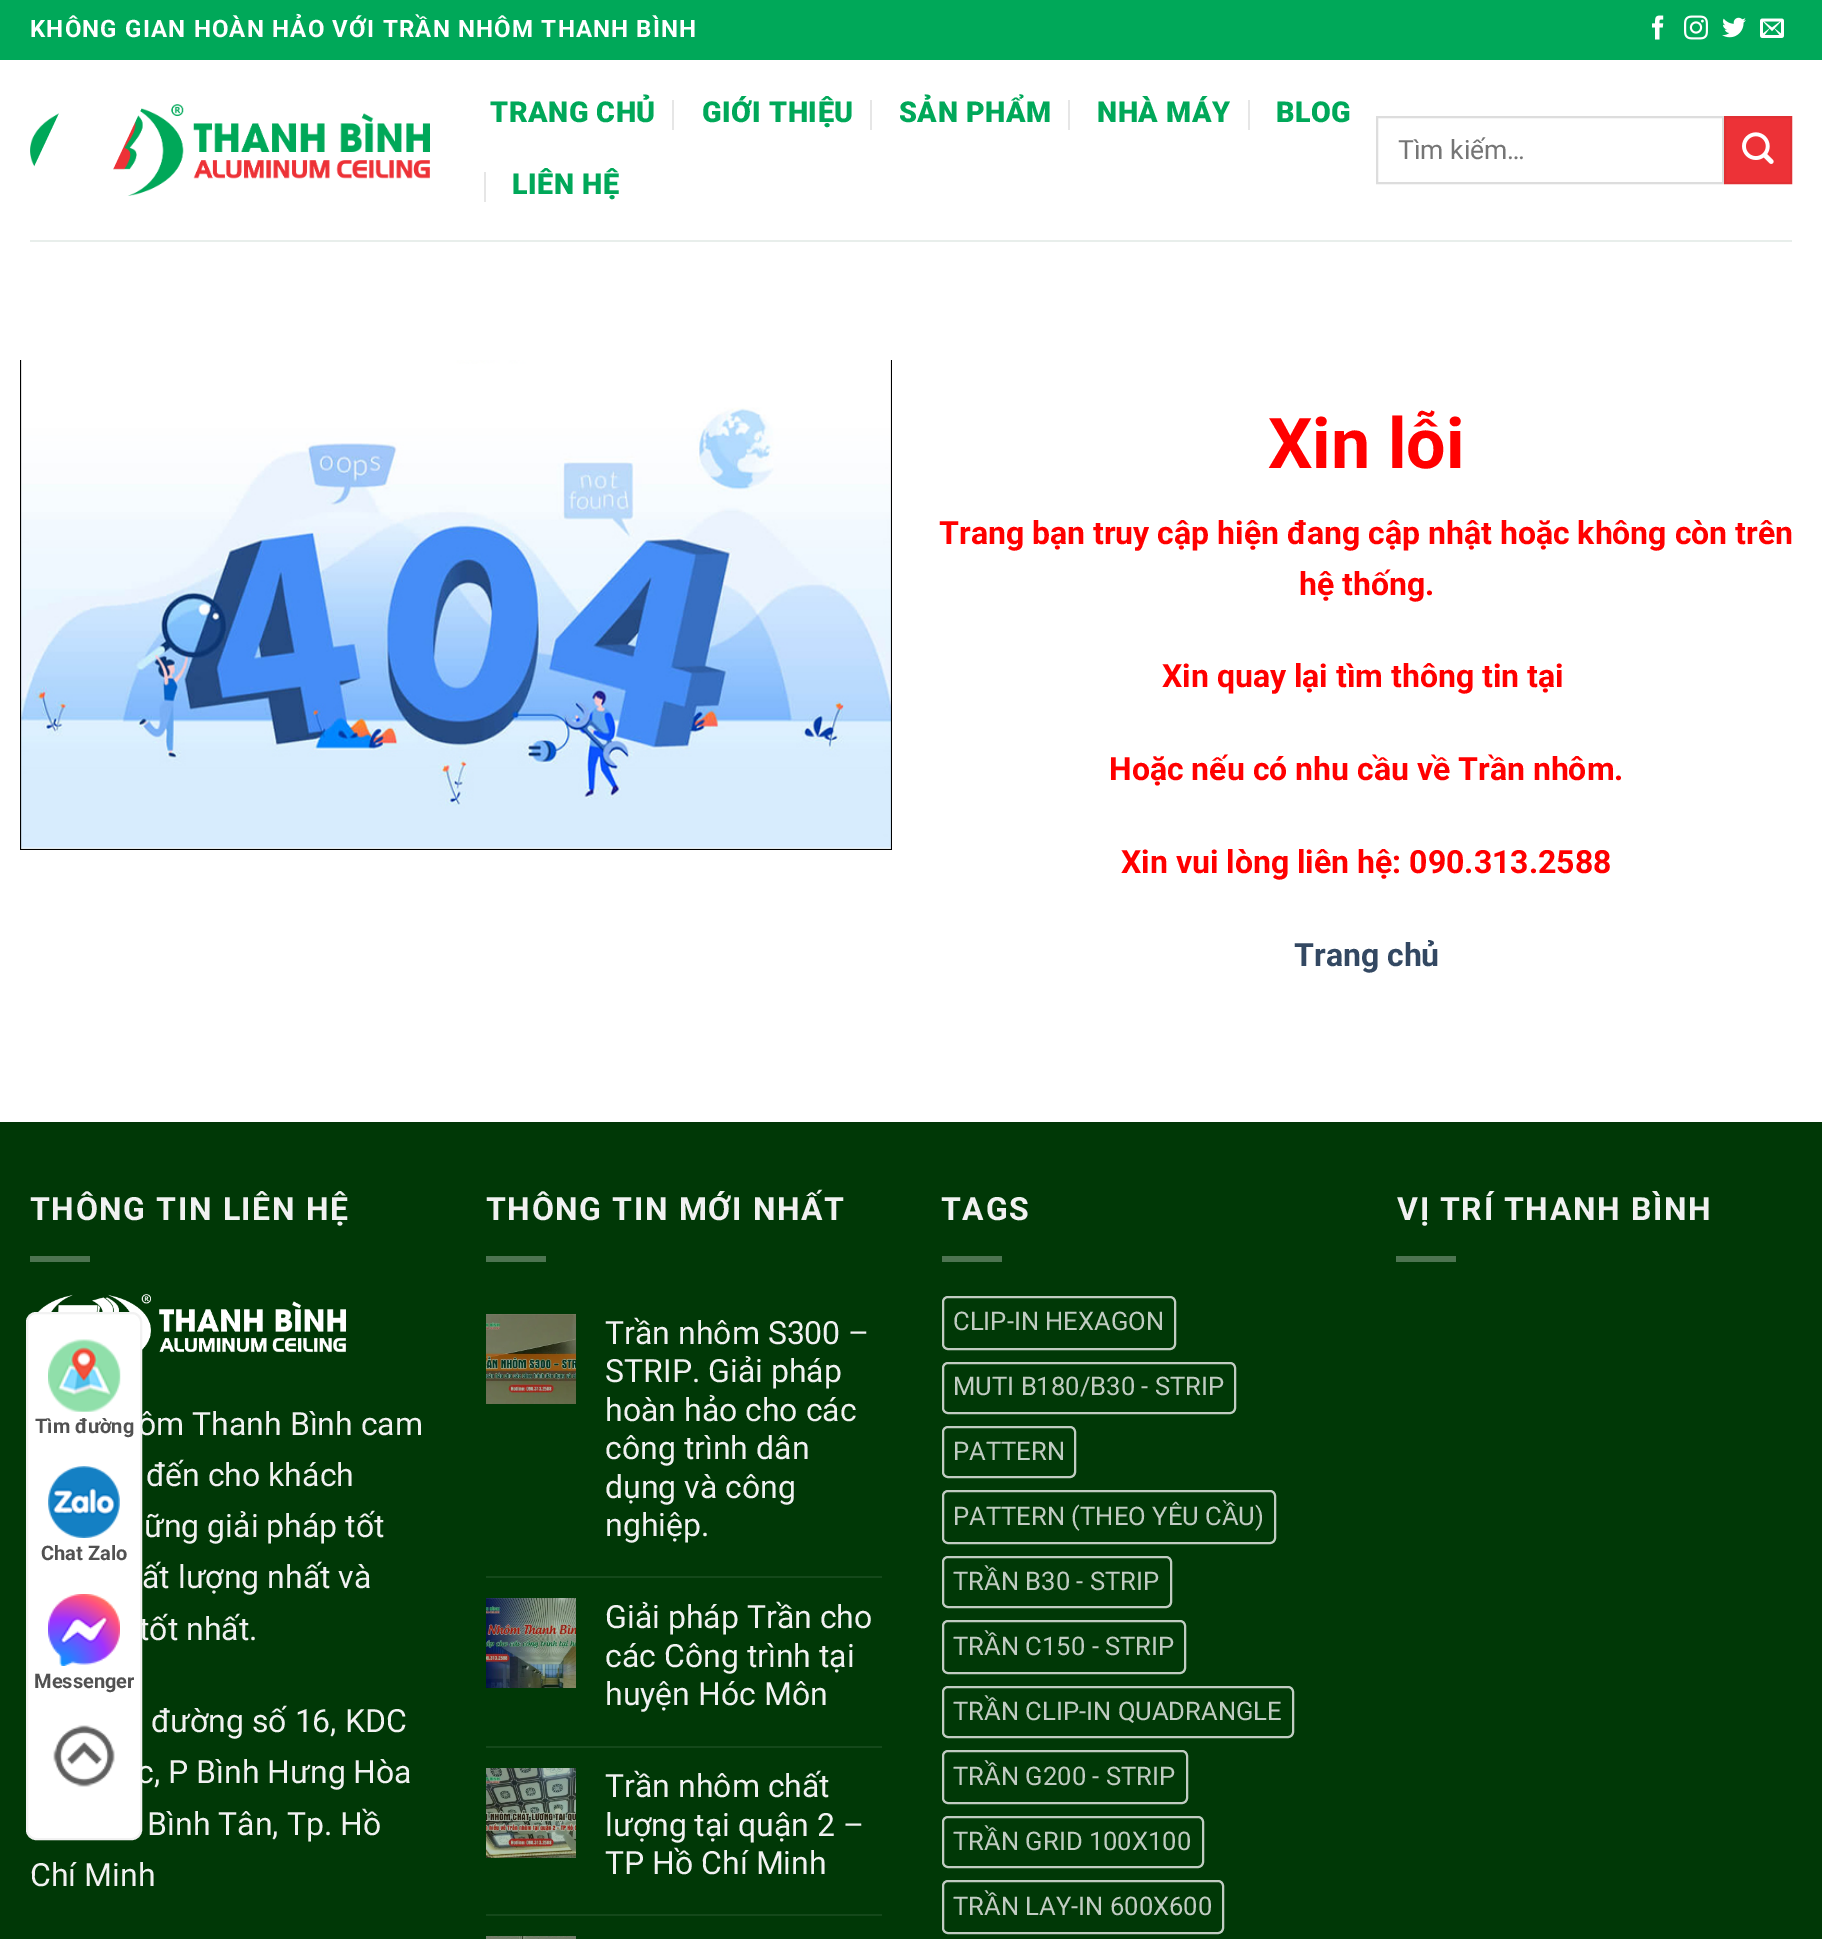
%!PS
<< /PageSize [1822 1939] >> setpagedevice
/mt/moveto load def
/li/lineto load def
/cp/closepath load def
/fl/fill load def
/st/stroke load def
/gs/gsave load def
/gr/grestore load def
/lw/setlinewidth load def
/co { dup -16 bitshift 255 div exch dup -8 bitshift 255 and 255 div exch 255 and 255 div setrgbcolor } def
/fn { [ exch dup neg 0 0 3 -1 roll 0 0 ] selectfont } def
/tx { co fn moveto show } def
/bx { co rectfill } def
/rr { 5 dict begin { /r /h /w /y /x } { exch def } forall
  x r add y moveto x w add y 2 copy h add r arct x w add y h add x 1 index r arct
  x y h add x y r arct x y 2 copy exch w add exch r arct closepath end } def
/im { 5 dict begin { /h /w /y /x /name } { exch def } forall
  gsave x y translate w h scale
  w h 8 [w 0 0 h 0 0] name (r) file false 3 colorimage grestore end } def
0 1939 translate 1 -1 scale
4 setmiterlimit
0 0 1822 1939 16#FFFFFF bx
0 0 1822 60 16#00A859 bx
(media/1.raw) 1652 15 12 25 im
(media/2.raw) 1684 15 24 25 im
(media/3.raw) 1722 17 24 21 im
(media/4.raw) 1760 18 24 20 im
(media/5.raw) 30 104 400 92 im
16#FFFFFF co
84 60 mt 164 60 li 80 240 li 0 240 li cp fl
672 100 2 30 16#E6E6E6 bx
870 100 2 30 16#E6E6E6 bx
1068 100 2 30 16#E6E6E6 bx
1248 100 2 30 16#E6E6E6 bx
484 172 2 30 16#E6E6E6 bx
16#DDDDDD co
2 lw
1377 117 346 66 rectstroke
16#ED3237 co
1725 117 mt 1791 117 li 1791 183 li 1725 183 li cp gs fl gr
16#E13034 co
st
(media/6.raw) 1742 132 32 32 im
30 240 1762 2 16#E8EEEB bx
(media/7.raw) 20 360 872 490 im
0 1124 1822 815 16#003806 bx
0 1122 1822 2 16#003506 bx
30 1256 60 6 16#4D7451 bx
(media/8.raw) 38 1294 308 59 im
486 1256 60 6 16#4D7451 bx
(media/9.raw) 486 1314 90 90 im
486 1576 396 2 16#14481A bx
(media/10.raw) 486 1598 90 90 im
486 1746 396 2 16#14481A bx
(media/11.raw) 486 1768 90 90 im
486 1914 396 2 16#14481A bx
(media/12.raw) 486 1936 90 3 im
942 1256 60 6 16#4D7451 bx
16#C1CCC2 co
943 1297 232 52 5 rr st
943 1363 292 50 5 rr st
943 1427 132 50 5 rr st
943 1491 332 52 5 rr st
943 1557 228 50 5 rr st
943 1621 242 52 5 rr st
943 1687 350 50 5 rr st
943 1751 244 52 5 rr st
943 1817 260 50 5 rr st
943 1881 280 52 5 rr st
1396 1256 60 6 16#4D7451 bx
/Roboto-Bold 24 fn
16#FFFFFF co
30 37 mt 1.2 0 (KHÔNG GIAN HOÀN HẢO VỚI TRẦN NHÔM THANH BÌNH) ashow
/Roboto-Black 28.75 fn
16#00A859 co
490 122 mt .5 0 (TRANG CHỦ) ashow
702 122 mt .5 0 (GIỚI THIỆU) ashow
899 122 mt .5 0 (SẢN PHẨM) ashow
1097 122 mt .5 0 (NHÀ MÁY) ashow
1276 122 mt .5 0 (BLOG) ashow
512 194 mt .5 0 (LIÊN HỆ) ashow
(Tìm kiếm…) 1398 159 /Roboto-Regular 26.5 16#757575 tx
(Xin lỗi) 1268 468 /Roboto-Bold 70 16#FF0000 tx
(Trang bạn truy cập hiện đang cập nhật hoặc không còn trên) 939 544 /Roboto-Bold 32 16#FF0000 tx
(hệ thống.) 1299 595 /Roboto-Bold 32 16#FF0000 tx
(Xin quay lại tìm thông tin tại) 1162 687 /Roboto-Bold 32 16#FF0000 tx
(Hoặc nếu có nhu cầu về Trần nhôm.) 1109 780 /Roboto-Bold 32 16#FF0000 tx
(Xin vui lòng liên hệ: 090.313.2588) 1121 873 /Roboto-Bold 32 16#FF0000 tx
(Trang chủ) 1294 966 /Roboto-Bold 32 16#334862 tx
16#F1F1F1 co
30 1220 mt 1.6 0 (THÔNG TIN LIÊN HỆ) ashow
(ôm Thanh Bình cam) 138 1435 /Roboto-Regular 32 16#F1F1F1 tx
(đến cho khách) 146 1486 /Roboto-Regular 32 16#F1F1F1 tx
(ững giải pháp tốt) 144 1537 /Roboto-Regular 32 16#F1F1F1 tx
(ất lượng nhất và) 142 1588 /Roboto-Regular 32 16#F1F1F1 tx
(tốt nhất.) 139 1640 /Roboto-Regular 32 16#F1F1F1 tx
(đường số 16, KDC) 151 1732 /Roboto-Regular 32 16#F1F1F1 tx
(c, P Bình Hưng Hòa) 137 1783 /Roboto-Regular 32 16#F1F1F1 tx
(Bình Tân, Tp. Hồ) 147 1835 /Roboto-Regular 32 16#F1F1F1 tx
(Chí Minh) 30 1886 /Roboto-Regular 32 16#F1F1F1 tx
/Roboto-Bold 32 fn
486 1220 mt 1.6 0 (THÔNG TIN MỚI NHẤT) ashow
(Trần nhôm S300 –) 605 1344 /Roboto-Regular 32 16#F1F1F1 tx
(STRIP. Giải pháp) 605 1382 /Roboto-Regular 32 16#F1F1F1 tx
(hoàn hảo cho các) 605 1421 /Roboto-Regular 32 16#F1F1F1 tx
(công trình dân) 605 1459 /Roboto-Regular 32 16#F1F1F1 tx
(dụng và công) 605 1498 /Roboto-Regular 32 16#F1F1F1 tx
(nghiệp.) 605 1536 /Roboto-Regular 32 16#F1F1F1 tx
(Giải pháp Trần cho) 605 1628 /Roboto-Regular 32 16#F1F1F1 tx
(các Công trình tại) 605 1667 /Roboto-Regular 32 16#F1F1F1 tx
(huyện Hóc Môn) 605 1705 /Roboto-Regular 32 16#F1F1F1 tx
(Trần nhôm chất) 605 1797 /Roboto-Regular 32 16#F1F1F1 tx
(lượng tại quận 2 –) 605 1836 /Roboto-Regular 32 16#F1F1F1 tx
(TP Hồ Chí Minh) 605 1874 /Roboto-Regular 32 16#F1F1F1 tx
/Roboto-Bold 32 fn
941 1220 mt 1.6 0 (TAGS) ashow
(CLIP-IN HEXAGON) 953 1330 /Roboto-Regular 25.6 16#C1CCC2 tx
(MUTI B180/B30 - STRIP) 953 1395 /Roboto-Regular 25.6 16#C1CCC2 tx
(PATTERN) 953 1460 /Roboto-Regular 25.6 16#C1CCC2 tx
(PATTERN \(THEO YÊU CẦU\)) 953 1525 /Roboto-Regular 25.6 16#C1CCC2 tx
(TRẦN B30 - STRIP) 953 1590 /Roboto-Regular 25.6 16#C1CCC2 tx
(TRẦN C150 - STRIP) 953 1655 /Roboto-Regular 25.6 16#C1CCC2 tx
(TRẦN CLIP-IN QUADRANGLE) 953 1720 /Roboto-Regular 25.6 16#C1CCC2 tx
(TRẦN G200 - STRIP) 953 1785 /Roboto-Regular 25.6 16#C1CCC2 tx
(TRẦN GRID 100X100) 953 1850 /Roboto-Regular 25.6 16#C1CCC2 tx
(TRẦN LAY-IN 600X600) 953 1915 /Roboto-Regular 25.6 16#C1CCC2 tx
/Roboto-Bold 32 fn
16#F1F1F1 co
1397 1220 mt 1.6 0 (VỊ TRÍ THANH BÌNH) ashow
16#FFFFFF co
27 1313 114 526 9 rr gs fl gr
16#F2F2F2 co
st
(media/13.raw) 48 1339 73 73 im
(Tìm đường) 35 1433 /Roboto-Bold 20 16#515151 tx
(media/14.raw) 48 1466 72 72 im
(Chat Zalo) 41 1560 /Roboto-Bold 20 16#515151 tx
(media/15.raw) 48 1594 72 72 im
(Messenger) 34 1688 /Roboto-Bold 20 16#515151 tx
(media/16.raw) 53 1725 62 62 im
showpage
